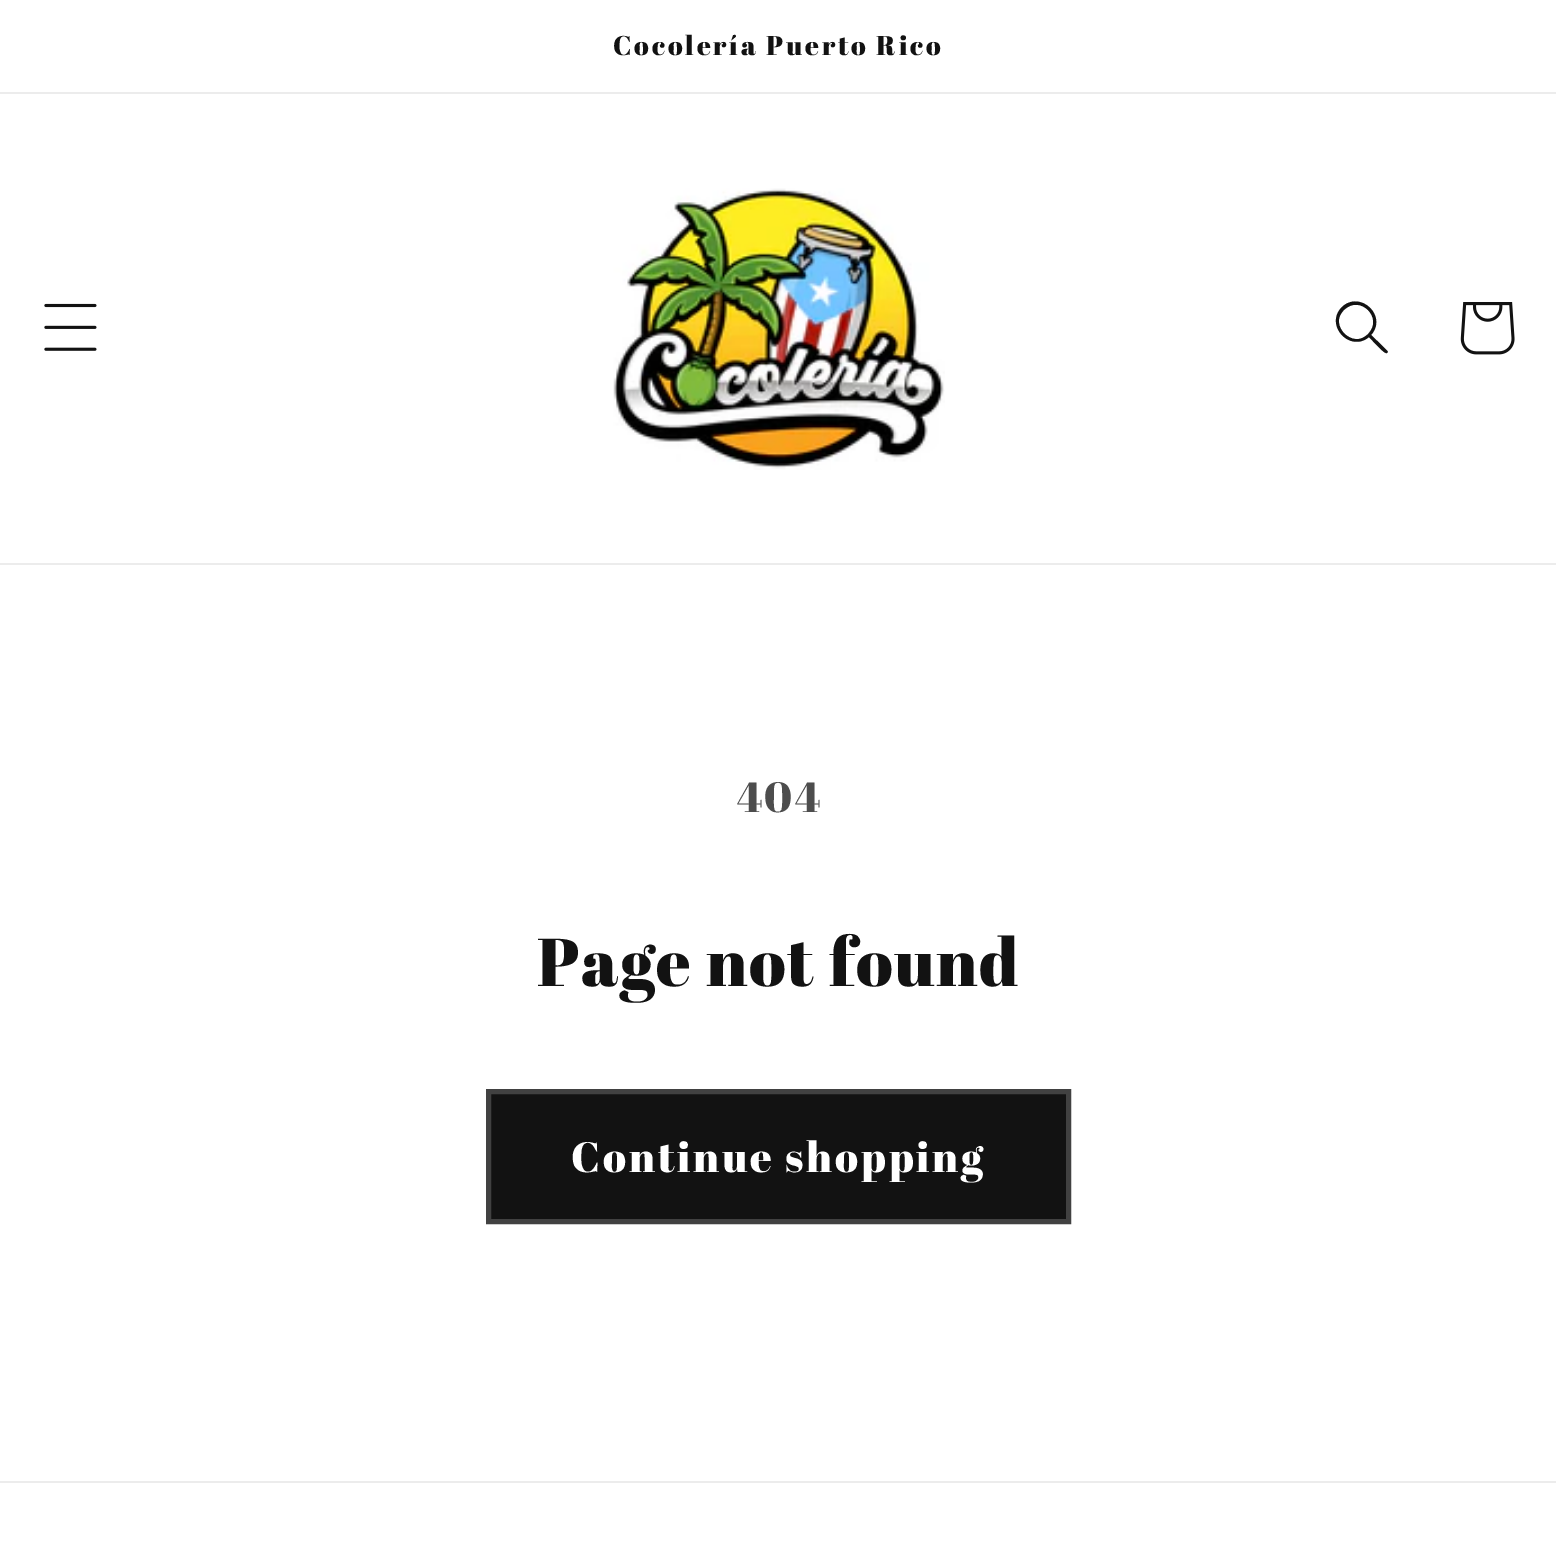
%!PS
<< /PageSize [1556 1567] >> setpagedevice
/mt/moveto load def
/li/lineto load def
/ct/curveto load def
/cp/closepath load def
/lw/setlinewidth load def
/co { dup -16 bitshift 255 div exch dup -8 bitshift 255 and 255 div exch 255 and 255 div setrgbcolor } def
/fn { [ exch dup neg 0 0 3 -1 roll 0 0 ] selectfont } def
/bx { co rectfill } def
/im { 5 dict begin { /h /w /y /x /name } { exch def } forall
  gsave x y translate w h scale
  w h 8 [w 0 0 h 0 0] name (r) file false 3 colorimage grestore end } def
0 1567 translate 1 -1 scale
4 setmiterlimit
0 0 1556 1567 16#FFFFFF bx
0 92 1556 2 16#ECECEC bx
0 563 1556 2 16#ECECEC bx
(media/1.raw) 44 303 53 48 im
(media/2.raw) 613 188 332 282 im
16#121212 co
1368 334 mt 1353 350 1328 325 1344 310 ct 1360 294 1384 318 1368 334 ct cp 1369 337 mt 1350 353 1324 325 1342 307 ct 1360 290 1388 316 1371 335 ct 1373 337 1388 351 1388 352 ct 1387 353 li 1385 355 1372 340 1369 337 ct cp eofill
(media/3.raw) 1460 302 55 53 im
491 1094 575 125 16#121212 bx
16#414141 co
5 lw
488.5 1091.5 580 130 rectstroke
0 1481 1556 2 16#ECECEC bx
/AbrilFatface-Regular 27 fn
16#121212 co
613 55 mt 2.8 0 (Cocolería Puerto Rico) ashow
/AbrilFatface-Regular 42.25 fn
16#4D4D4D co
737 812 mt 2 0 (404) ashow
/AbrilFatface-Regular 67.5 fn
16#121212 co
537 986 mt 1.4 0 (Page not found) ashow
/AbrilFatface-Regular 42.25 fn
16#FFFFFF co
571 1172 mt 2.8 0 (Continue shopping) ashow
showpage
